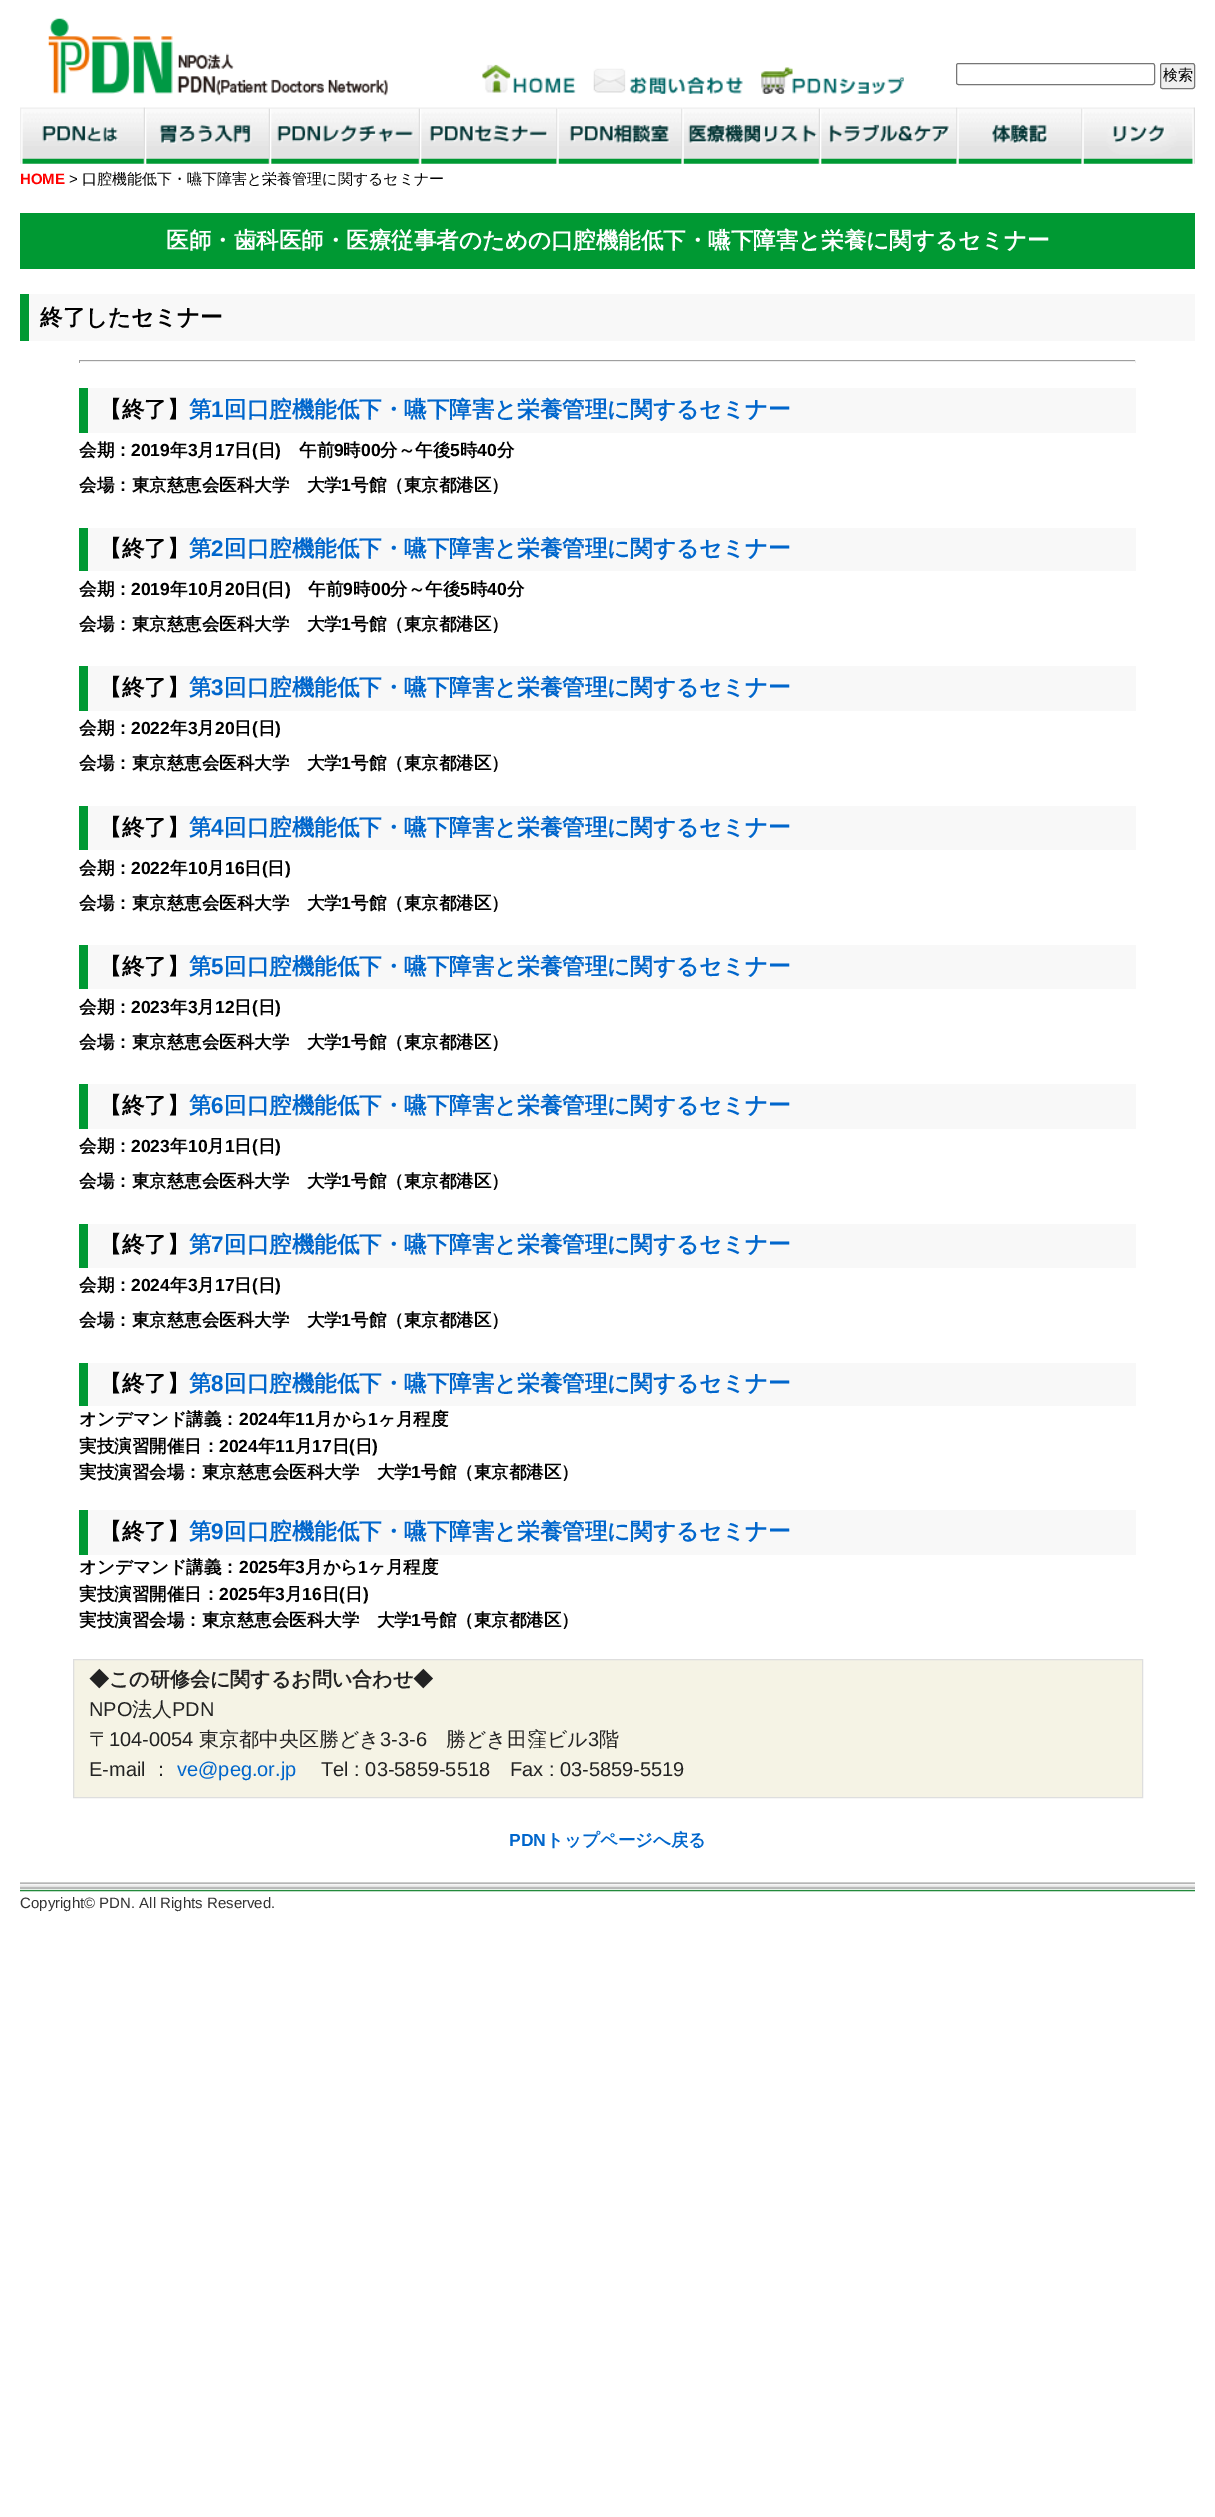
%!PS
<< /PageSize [1215 2517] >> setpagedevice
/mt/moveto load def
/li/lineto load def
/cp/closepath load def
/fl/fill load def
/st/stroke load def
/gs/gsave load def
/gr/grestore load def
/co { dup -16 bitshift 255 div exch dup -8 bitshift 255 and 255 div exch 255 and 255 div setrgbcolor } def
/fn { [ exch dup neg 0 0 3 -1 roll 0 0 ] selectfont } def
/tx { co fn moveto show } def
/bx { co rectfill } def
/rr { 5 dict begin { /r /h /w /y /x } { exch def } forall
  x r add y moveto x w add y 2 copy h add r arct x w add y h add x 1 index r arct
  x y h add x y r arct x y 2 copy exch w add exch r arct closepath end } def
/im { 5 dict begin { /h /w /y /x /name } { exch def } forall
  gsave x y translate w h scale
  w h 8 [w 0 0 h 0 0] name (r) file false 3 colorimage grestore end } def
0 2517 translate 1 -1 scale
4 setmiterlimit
0 0 1215 2517 16#FFFFFF bx
(media/1.raw) 48 18 340 78 im
(media/2.raw) 482 64 94 29 im
(media/3.raw) 593 68 150 26 im
(media/4.raw) 761 67 143 27 im
16#767676 co
956.5 63.5 198 21 2 rr st
16#EFEFEF co
1160.5 63.5 34 25 2 rr gs fl gr
16#767676 co
st
(media/5.raw) 20 107 125 57 im
(media/6.raw) 145 107 125 57 im
(media/7.raw) 270 107 150 57 im
(media/8.raw) 420 107 138 57 im
(media/9.raw) 557 107 126 57 im
(media/10.raw) 682 107 138 57 im
(media/11.raw) 820 107 138 57 im
(media/12.raw) 957 107 126 57 im
(media/13.raw) 1082 107 113 57 im
20 213 1175 56 16#009933 bx
29 294 1166 47 16#F8F8F8 bx
20 294 9 47 16#009933 bx
79 360 1057 1 16#9F9F9F bx
1135 360 1 3 16#EEEEEE bx
79 361 1057 1 16#EEEEEE bx
79 360 1 3 16#9F9F9F bx
88 388 1048 45 16#F8F8F8 bx
79 388 9 45 16#009933 bx
88 528 1048 43 16#F8F8F8 bx
79 528 9 43 16#009933 bx
88 666 1048 45 16#F8F8F8 bx
79 666 9 45 16#009933 bx
88 806 1048 44 16#F8F8F8 bx
79 806 9 44 16#009933 bx
88 945 1048 44 16#F8F8F8 bx
79 945 9 44 16#009933 bx
88 1084 1048 45 16#F8F8F8 bx
79 1084 9 45 16#009933 bx
88 1224 1048 44 16#F8F8F8 bx
79 1224 9 44 16#009933 bx
88 1363 1048 43 16#F8F8F8 bx
79 1363 9 43 16#009933 bx
88 1510 1048 45 16#F8F8F8 bx
79 1510 9 45 16#009933 bx
16#F5F3E5 co
73.5 1659.5 mt 1142.5 1659.5 li 1142.5 1797.5 li 73.5 1797.5 li cp gs fl gr
16#DEDEDE co
st
(media/14.raw) 20 1882 1175 10 im
(検索) 1163 80 /WenQuanYiZenHei-Medium 15 16#000000 tx
(HOME) 20 184 /LiberationSans-Bold 15 16#FF0000 tx
(>) 69 184 /LiberationSans-Regular 15 16#000000 tx
(口腔機能低下・嚥下障害と栄養管理に関するセミナー) 82 184 /WenQuanYiZenHei-Medium 15 16#000000 tx
(医師・歯科医師・医療従事者のための口腔機能低下・嚥下障害と栄養に関するセミナー) 166 248 /WenQuanYiZenHei-Bold 22.5 16#FFFFFF tx
(終了したセミナー) 40 325 /WenQuanYiZenHei-Bold 22.5 16#000000 tx
(【終了】) 99 417 /WenQuanYiZenHei-Bold 22.5 16#000000 tx
(第) 189 417 /WenQuanYiZenHei-Bold 22.5 16#0066CC tx
(1) 211 417 /LiberationSans-Bold 22.5 16#0066CC tx
(回口腔機能低下・嚥下障害と栄養管理に関するセミナー) 224 417 /WenQuanYiZenHei-Bold 22.5 16#0066CC tx
(会期：) 79 456 /WenQuanYiZenHei-Bold 17.5 16#000000 tx
(2019) 131 456 /LiberationSans-Bold 17.5 16#000000 tx
(年) 170 456 /WenQuanYiZenHei-Bold 17.5 16#000000 tx
(3) 188 456 /LiberationSans-Bold 17.5 16#000000 tx
(月) 197 456 /WenQuanYiZenHei-Bold 17.5 16#000000 tx
(17) 215 456 /LiberationSans-Bold 17.5 16#000000 tx
(日) 234 456 /WenQuanYiZenHei-Bold 17.5 16#000000 tx
(\() 252 456 /LiberationSans-Bold 17.5 16#000000 tx
(日) 258 456 /WenQuanYiZenHei-Bold 17.5 16#000000 tx
(\)) 275 456 /LiberationSans-Bold 17.5 16#000000 tx
(午前) 299 456 /WenQuanYiZenHei-Bold 17.5 16#000000 tx
(9) 334 456 /LiberationSans-Bold 17.5 16#000000 tx
(時) 343 456 /WenQuanYiZenHei-Bold 17.5 16#000000 tx
(00) 361 456 /LiberationSans-Bold 17.5 16#000000 tx
(分～午後) 380 456 /WenQuanYiZenHei-Bold 17.5 16#000000 tx
(5) 450 456 /LiberationSans-Bold 17.5 16#000000 tx
(時) 460 456 /WenQuanYiZenHei-Bold 17.5 16#000000 tx
(40) 477 456 /LiberationSans-Bold 17.5 16#000000 tx
(分) 497 456 /WenQuanYiZenHei-Bold 17.5 16#000000 tx
(会場：東京慈恵会医科大学　大学) 79 491 /WenQuanYiZenHei-Bold 17.5 16#000000 tx
(1) 341 491 /LiberationSans-Bold 17.5 16#000000 tx
(号館（東京都港区）) 351 491 /WenQuanYiZenHei-Bold 17.5 16#000000 tx
(【終了】) 99 556 /WenQuanYiZenHei-Bold 22.5 16#000000 tx
(第) 189 556 /WenQuanYiZenHei-Bold 22.5 16#0066CC tx
(2) 211 556 /LiberationSans-Bold 22.5 16#0066CC tx
(回口腔機能低下・嚥下障害と栄養管理に関するセミナー) 224 556 /WenQuanYiZenHei-Bold 22.5 16#0066CC tx
(会期：) 79 595 /WenQuanYiZenHei-Bold 17.5 16#000000 tx
(2019) 131 595 /LiberationSans-Bold 17.5 16#000000 tx
(年) 170 595 /WenQuanYiZenHei-Bold 17.5 16#000000 tx
(10) 188 595 /LiberationSans-Bold 17.5 16#000000 tx
(月) 207 595 /WenQuanYiZenHei-Bold 17.5 16#000000 tx
(20) 225 595 /LiberationSans-Bold 17.5 16#000000 tx
(日) 244 595 /WenQuanYiZenHei-Bold 17.5 16#000000 tx
(\() 262 595 /LiberationSans-Bold 17.5 16#000000 tx
(日) 267 595 /WenQuanYiZenHei-Bold 17.5 16#000000 tx
(\)) 285 595 /LiberationSans-Bold 17.5 16#000000 tx
(午前) 308 595 /WenQuanYiZenHei-Bold 17.5 16#000000 tx
(9) 343 595 /LiberationSans-Bold 17.5 16#000000 tx
(時) 353 595 /WenQuanYiZenHei-Bold 17.5 16#000000 tx
(00) 371 595 /LiberationSans-Bold 17.5 16#000000 tx
(分～午後) 390 595 /WenQuanYiZenHei-Bold 17.5 16#000000 tx
(5) 460 595 /LiberationSans-Bold 17.5 16#000000 tx
(時) 470 595 /WenQuanYiZenHei-Bold 17.5 16#000000 tx
(40) 487 595 /LiberationSans-Bold 17.5 16#000000 tx
(分) 507 595 /WenQuanYiZenHei-Bold 17.5 16#000000 tx
(会場：東京慈恵会医科大学　大学) 79 630 /WenQuanYiZenHei-Bold 17.5 16#000000 tx
(1) 341 630 /LiberationSans-Bold 17.5 16#000000 tx
(号館（東京都港区）) 351 630 /WenQuanYiZenHei-Bold 17.5 16#000000 tx
(【終了】) 99 695 /WenQuanYiZenHei-Bold 22.5 16#000000 tx
(第) 189 695 /WenQuanYiZenHei-Bold 22.5 16#0066CC tx
(3) 211 695 /LiberationSans-Bold 22.5 16#0066CC tx
(回口腔機能低下・嚥下障害と栄養管理に関するセミナー) 224 695 /WenQuanYiZenHei-Bold 22.5 16#0066CC tx
(会期：) 79 734 /WenQuanYiZenHei-Bold 17.5 16#000000 tx
(2022) 131 734 /LiberationSans-Bold 17.5 16#000000 tx
(年) 170 734 /WenQuanYiZenHei-Bold 17.5 16#000000 tx
(3) 188 734 /LiberationSans-Bold 17.5 16#000000 tx
(月) 197 734 /WenQuanYiZenHei-Bold 17.5 16#000000 tx
(20) 215 734 /LiberationSans-Bold 17.5 16#000000 tx
(日) 234 734 /WenQuanYiZenHei-Bold 17.5 16#000000 tx
(\() 252 734 /LiberationSans-Bold 17.5 16#000000 tx
(日) 258 734 /WenQuanYiZenHei-Bold 17.5 16#000000 tx
(\)) 275 734 /LiberationSans-Bold 17.5 16#000000 tx
(会場：東京慈恵会医科大学　大学) 79 769 /WenQuanYiZenHei-Bold 17.5 16#000000 tx
(1) 341 769 /LiberationSans-Bold 17.5 16#000000 tx
(号館（東京都港区）) 351 769 /WenQuanYiZenHei-Bold 17.5 16#000000 tx
(【終了】) 99 835 /WenQuanYiZenHei-Bold 22.5 16#000000 tx
(第) 189 835 /WenQuanYiZenHei-Bold 22.5 16#0066CC tx
(4) 211 835 /LiberationSans-Bold 22.5 16#0066CC tx
(回口腔機能低下・嚥下障害と栄養管理に関するセミナー) 224 835 /WenQuanYiZenHei-Bold 22.5 16#0066CC tx
(会期：) 79 874 /WenQuanYiZenHei-Bold 17.5 16#000000 tx
(2022) 131 874 /LiberationSans-Bold 17.5 16#000000 tx
(年) 170 874 /WenQuanYiZenHei-Bold 17.5 16#000000 tx
(10) 188 874 /LiberationSans-Bold 17.5 16#000000 tx
(月) 207 874 /WenQuanYiZenHei-Bold 17.5 16#000000 tx
(16) 225 874 /LiberationSans-Bold 17.5 16#000000 tx
(日) 244 874 /WenQuanYiZenHei-Bold 17.5 16#000000 tx
(\() 262 874 /LiberationSans-Bold 17.5 16#000000 tx
(日) 267 874 /WenQuanYiZenHei-Bold 17.5 16#000000 tx
(\)) 285 874 /LiberationSans-Bold 17.5 16#000000 tx
(会場：東京慈恵会医科大学　大学) 79 909 /WenQuanYiZenHei-Bold 17.5 16#000000 tx
(1) 341 909 /LiberationSans-Bold 17.5 16#000000 tx
(号館（東京都港区）) 351 909 /WenQuanYiZenHei-Bold 17.5 16#000000 tx
(【終了】) 99 974 /WenQuanYiZenHei-Bold 22.5 16#000000 tx
(第) 189 974 /WenQuanYiZenHei-Bold 22.5 16#0066CC tx
(5) 211 974 /LiberationSans-Bold 22.5 16#0066CC tx
(回口腔機能低下・嚥下障害と栄養管理に関するセミナー) 224 974 /WenQuanYiZenHei-Bold 22.5 16#0066CC tx
(会期：) 79 1013 /WenQuanYiZenHei-Bold 17.5 16#000000 tx
(2023) 131 1013 /LiberationSans-Bold 17.5 16#000000 tx
(年) 170 1013 /WenQuanYiZenHei-Bold 17.5 16#000000 tx
(3) 188 1013 /LiberationSans-Bold 17.5 16#000000 tx
(月) 197 1013 /WenQuanYiZenHei-Bold 17.5 16#000000 tx
(12) 215 1013 /LiberationSans-Bold 17.5 16#000000 tx
(日) 234 1013 /WenQuanYiZenHei-Bold 17.5 16#000000 tx
(\() 252 1013 /LiberationSans-Bold 17.5 16#000000 tx
(日) 258 1013 /WenQuanYiZenHei-Bold 17.5 16#000000 tx
(\)) 275 1013 /LiberationSans-Bold 17.5 16#000000 tx
(会場：東京慈恵会医科大学　大学) 79 1048 /WenQuanYiZenHei-Bold 17.5 16#000000 tx
(1) 341 1048 /LiberationSans-Bold 17.5 16#000000 tx
(号館（東京都港区）) 351 1048 /WenQuanYiZenHei-Bold 17.5 16#000000 tx
(【終了】) 99 1113 /WenQuanYiZenHei-Bold 22.5 16#000000 tx
(第) 189 1113 /WenQuanYiZenHei-Bold 22.5 16#0066CC tx
(6) 211 1113 /LiberationSans-Bold 22.5 16#0066CC tx
(回口腔機能低下・嚥下障害と栄養管理に関するセミナー) 224 1113 /WenQuanYiZenHei-Bold 22.5 16#0066CC tx
(会期：) 79 1152 /WenQuanYiZenHei-Bold 17.5 16#000000 tx
(2023) 131 1152 /LiberationSans-Bold 17.5 16#000000 tx
(年) 170 1152 /WenQuanYiZenHei-Bold 17.5 16#000000 tx
(10) 188 1152 /LiberationSans-Bold 17.5 16#000000 tx
(月) 207 1152 /WenQuanYiZenHei-Bold 17.5 16#000000 tx
(1) 225 1152 /LiberationSans-Bold 17.5 16#000000 tx
(日) 234 1152 /WenQuanYiZenHei-Bold 17.5 16#000000 tx
(\() 252 1152 /LiberationSans-Bold 17.5 16#000000 tx
(日) 258 1152 /WenQuanYiZenHei-Bold 17.5 16#000000 tx
(\)) 275 1152 /LiberationSans-Bold 17.5 16#000000 tx
(会場：東京慈恵会医科大学　大学) 79 1187 /WenQuanYiZenHei-Bold 17.5 16#000000 tx
(1) 341 1187 /LiberationSans-Bold 17.5 16#000000 tx
(号館（東京都港区）) 351 1187 /WenQuanYiZenHei-Bold 17.5 16#000000 tx
(【終了】) 99 1252 /WenQuanYiZenHei-Bold 22.5 16#000000 tx
(第) 189 1252 /WenQuanYiZenHei-Bold 22.5 16#0066CC tx
(7) 211 1252 /LiberationSans-Bold 22.5 16#0066CC tx
(回口腔機能低下・嚥下障害と栄養管理に関するセミナー) 224 1252 /WenQuanYiZenHei-Bold 22.5 16#0066CC tx
(会期：) 79 1291 /WenQuanYiZenHei-Bold 17.5 16#000000 tx
(2024) 131 1291 /LiberationSans-Bold 17.5 16#000000 tx
(年) 170 1291 /WenQuanYiZenHei-Bold 17.5 16#000000 tx
(3) 188 1291 /LiberationSans-Bold 17.5 16#000000 tx
(月) 197 1291 /WenQuanYiZenHei-Bold 17.5 16#000000 tx
(17) 215 1291 /LiberationSans-Bold 17.5 16#000000 tx
(日) 234 1291 /WenQuanYiZenHei-Bold 17.5 16#000000 tx
(\() 252 1291 /LiberationSans-Bold 17.5 16#000000 tx
(日) 258 1291 /WenQuanYiZenHei-Bold 17.5 16#000000 tx
(\)) 275 1291 /LiberationSans-Bold 17.5 16#000000 tx
(会場：東京慈恵会医科大学　大学) 79 1326 /WenQuanYiZenHei-Bold 17.5 16#000000 tx
(1) 341 1326 /LiberationSans-Bold 17.5 16#000000 tx
(号館（東京都港区）) 351 1326 /WenQuanYiZenHei-Bold 17.5 16#000000 tx
(【終了】) 99 1391 /WenQuanYiZenHei-Bold 22.5 16#000000 tx
(第) 189 1391 /WenQuanYiZenHei-Bold 22.5 16#0066CC tx
(8) 211 1391 /LiberationSans-Bold 22.5 16#0066CC tx
(回口腔機能低下・嚥下障害と栄養管理に関するセミナー) 224 1391 /WenQuanYiZenHei-Bold 22.5 16#0066CC tx
(オンデマンド講義：) 79 1425 /WenQuanYiZenHei-Bold 17.5 16#000000 tx
(2024) 239 1425 /LiberationSans-Bold 17.5 16#000000 tx
(年) 278 1425 /WenQuanYiZenHei-Bold 17.5 16#000000 tx
(11) 295 1425 /LiberationSans-Bold 17.5 16#000000 tx
(月から) 315 1425 /WenQuanYiZenHei-Bold 17.5 16#000000 tx
(1) 368 1425 /LiberationSans-Bold 17.5 16#000000 tx
(ヶ月程度) 378 1425 /WenQuanYiZenHei-Bold 17.5 16#000000 tx
(実技演習開催日：) 79 1452 /WenQuanYiZenHei-Bold 17.5 16#000000 tx
(2024) 219 1452 /LiberationSans-Bold 17.5 16#000000 tx
(年) 258 1452 /WenQuanYiZenHei-Bold 17.5 16#000000 tx
(11) 275 1452 /LiberationSans-Bold 17.5 16#000000 tx
(月) 295 1452 /WenQuanYiZenHei-Bold 17.5 16#000000 tx
(17) 312 1452 /LiberationSans-Bold 17.5 16#000000 tx
(日) 332 1452 /WenQuanYiZenHei-Bold 17.5 16#000000 tx
(\() 349 1452 /LiberationSans-Bold 17.5 16#000000 tx
(日) 355 1452 /WenQuanYiZenHei-Bold 17.5 16#000000 tx
(\)) 372 1452 /LiberationSans-Bold 17.5 16#000000 tx
(実技演習会場：東京慈恵会医科大学　大学) 79 1478 /WenQuanYiZenHei-Bold 17.5 16#000000 tx
(1) 411 1478 /LiberationSans-Bold 17.5 16#000000 tx
(号館（東京都港区）) 421 1478 /WenQuanYiZenHei-Bold 17.5 16#000000 tx
(【終了】) 99 1539 /WenQuanYiZenHei-Bold 22.5 16#000000 tx
(第) 189 1539 /WenQuanYiZenHei-Bold 22.5 16#0066CC tx
(9) 211 1539 /LiberationSans-Bold 22.5 16#0066CC tx
(回口腔機能低下・嚥下障害と栄養管理に関するセミナー) 224 1539 /WenQuanYiZenHei-Bold 22.5 16#0066CC tx
(オンデマンド講義：) 79 1573 /WenQuanYiZenHei-Bold 17.5 16#000000 tx
(2025) 239 1573 /LiberationSans-Bold 17.5 16#000000 tx
(年) 278 1573 /WenQuanYiZenHei-Bold 17.5 16#000000 tx
(3) 295 1573 /LiberationSans-Bold 17.5 16#000000 tx
(月から) 305 1573 /WenQuanYiZenHei-Bold 17.5 16#000000 tx
(1) 358 1573 /LiberationSans-Bold 17.5 16#000000 tx
(ヶ月程度) 368 1573 /WenQuanYiZenHei-Bold 17.5 16#000000 tx
(実技演習開催日：) 79 1600 /WenQuanYiZenHei-Bold 17.5 16#000000 tx
(2025) 219 1600 /LiberationSans-Bold 17.5 16#000000 tx
(年) 258 1600 /WenQuanYiZenHei-Bold 17.5 16#000000 tx
(3) 275 1600 /LiberationSans-Bold 17.5 16#000000 tx
(月) 285 1600 /WenQuanYiZenHei-Bold 17.5 16#000000 tx
(16) 302 1600 /LiberationSans-Bold 17.5 16#000000 tx
(日) 322 1600 /WenQuanYiZenHei-Bold 17.5 16#000000 tx
(\() 339 1600 /LiberationSans-Bold 17.5 16#000000 tx
(日) 345 1600 /WenQuanYiZenHei-Bold 17.5 16#000000 tx
(\)) 363 1600 /LiberationSans-Bold 17.5 16#000000 tx
(実技演習会場：東京慈恵会医科大学　大学) 79 1626 /WenQuanYiZenHei-Bold 17.5 16#000000 tx
(1) 411 1626 /LiberationSans-Bold 17.5 16#000000 tx
(号館（東京都港区）) 421 1626 /WenQuanYiZenHei-Bold 17.5 16#000000 tx
(◆この研修会に関するお問い合わせ◆) 89 1686 /WenQuanYiZenHei-Bold 20 16#222222 tx
(NPO) 89 1716 /LiberationSans-Regular 20 16#222222 tx
(法人) 132 1716 /WenQuanYiZenHei-Medium 20 16#222222 tx
(PDN) 172 1716 /LiberationSans-Regular 20 16#222222 tx
(〒) 89 1746 /WenQuanYiZenHei-Medium 20 16#222222 tx
(104-0054) 109 1746 /LiberationSans-Regular 20 16#222222 tx
(東京都中央区勝どき) 199 1746 /WenQuanYiZenHei-Medium 20 16#222222 tx
(3-3-6) 380 1746 /LiberationSans-Regular 20 16#222222 tx
(勝どき田窪ビル) 446 1746 /WenQuanYiZenHei-Medium 20 16#222222 tx
(3) 588 1746 /LiberationSans-Regular 20 16#222222 tx
(階) 599 1746 /WenQuanYiZenHei-Medium 20 16#222222 tx
(E-mail) 89 1776 /LiberationSans-Regular 20 16#222222 tx
(：) 151 1776 /WenQuanYiZenHei-Medium 20 16#222222 tx
(ve@peg.or.jp) 177 1776 /LiberationSans-Regular 20 16#0066CC tx
(Tel : 03-5859-5518) 321 1776 /LiberationSans-Regular 20 16#222222 tx
(Fax : 03-5859-5519) 510 1776 /LiberationSans-Regular 20 16#222222 tx
(PDN) 509 1846 /LiberationSans-Bold 17.5 16#0066CC tx
(トップページへ戻る) 546 1846 /WenQuanYiZenHei-Bold 17.5 16#0066CC tx
(Copyright© PDN. All Rights Reserved.) 20 1908 /LiberationSans-Regular 15 16#333333 tx
showpage
